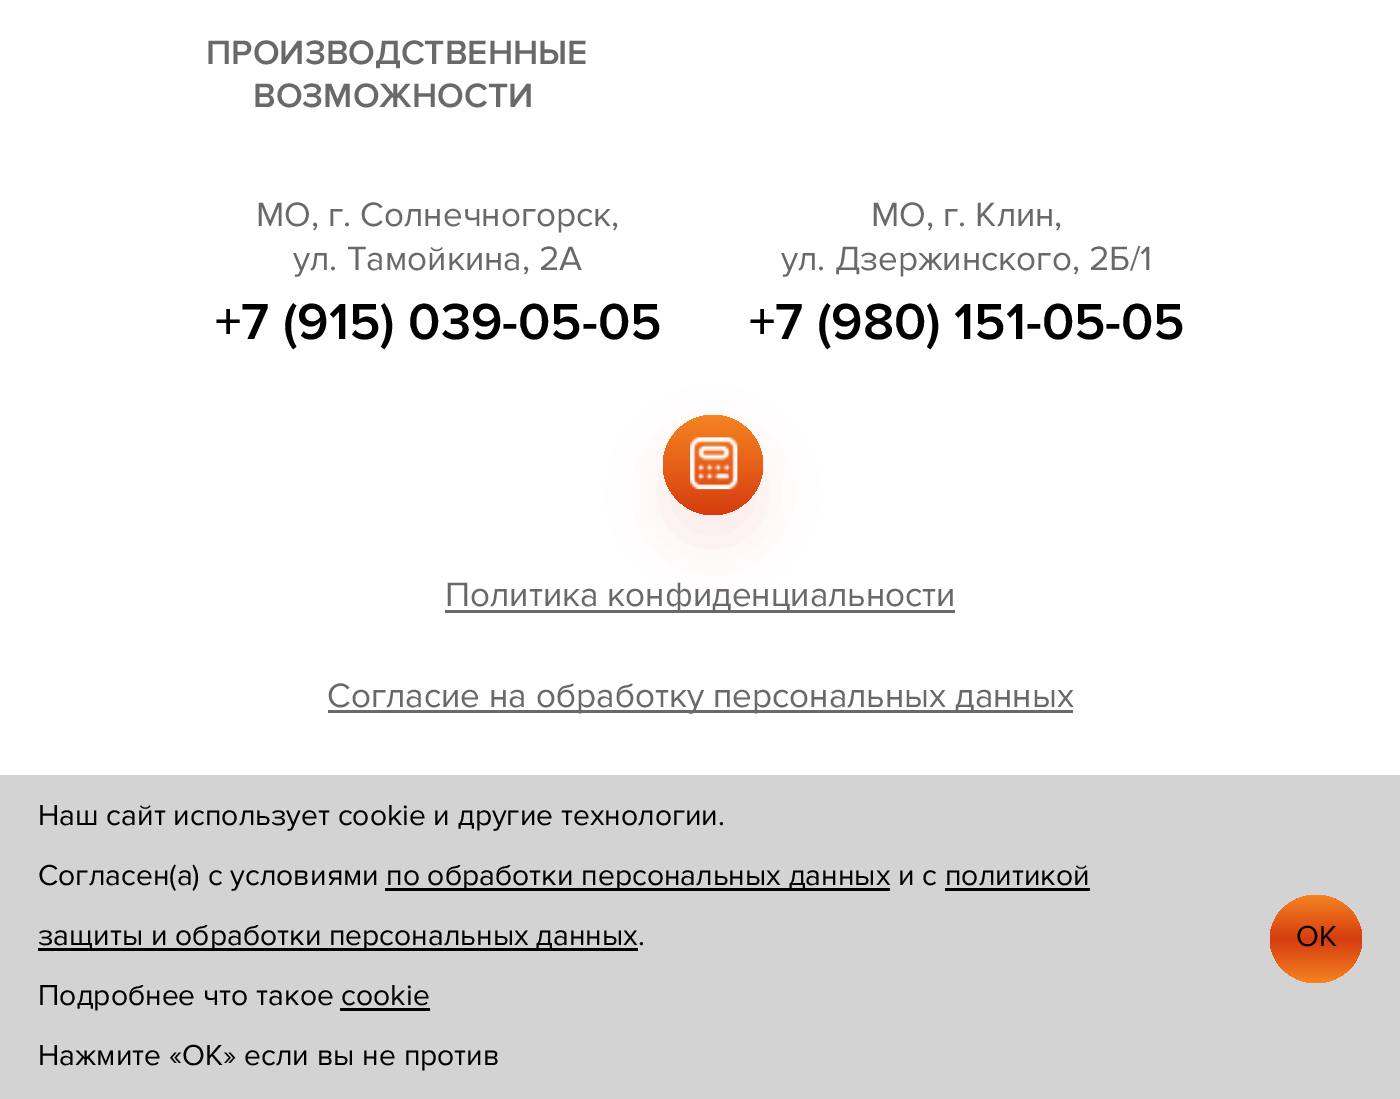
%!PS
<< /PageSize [1400 1099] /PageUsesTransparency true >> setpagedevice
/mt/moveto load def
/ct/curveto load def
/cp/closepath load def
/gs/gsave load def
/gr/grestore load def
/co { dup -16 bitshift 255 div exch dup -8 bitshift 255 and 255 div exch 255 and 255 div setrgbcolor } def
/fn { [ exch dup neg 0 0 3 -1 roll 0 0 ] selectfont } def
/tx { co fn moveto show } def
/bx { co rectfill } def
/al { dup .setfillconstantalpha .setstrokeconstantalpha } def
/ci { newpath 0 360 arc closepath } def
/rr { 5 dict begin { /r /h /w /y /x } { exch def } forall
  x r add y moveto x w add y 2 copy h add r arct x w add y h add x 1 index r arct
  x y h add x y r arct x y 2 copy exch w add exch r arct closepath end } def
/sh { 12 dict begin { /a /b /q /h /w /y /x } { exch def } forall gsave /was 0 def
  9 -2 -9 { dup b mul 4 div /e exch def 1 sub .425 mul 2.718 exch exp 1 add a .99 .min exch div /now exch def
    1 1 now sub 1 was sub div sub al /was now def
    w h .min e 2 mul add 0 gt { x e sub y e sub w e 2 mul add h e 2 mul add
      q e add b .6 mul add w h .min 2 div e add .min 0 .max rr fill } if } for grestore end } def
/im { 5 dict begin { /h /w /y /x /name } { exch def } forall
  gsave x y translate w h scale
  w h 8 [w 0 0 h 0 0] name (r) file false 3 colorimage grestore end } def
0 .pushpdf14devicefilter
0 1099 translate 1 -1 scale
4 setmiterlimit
0 0 1400 1099 16#FFFFFF bx
445 610 510 3 16#696969 bx
16#D63C0F co
663 443 100 100 50 26 .1 sh
gs 713 465 50 ci clip newpath
<< /ShadingType 2 /ColorSpace /DeviceRGB /Coords [713 615 713 415] /Extend [true true] /Function << /FunctionType 3 /Domain [0 1] /Functions [<< /FunctionType 2 /Domain [0 1] /C0 [.961 .518 .133] /C1 [.839 .235 .059] /N 1 >> << /FunctionType 2 /Domain [0 1] /C0 [.839 .235 .059] /C1 [.961 .518 .133] /N 1 >>] /Bounds [.5] /Encode [0 1 0 1] >> >> shfill gr
(media/1.raw) 690 437 48 53 im
328 710 745 3 16#696969 bx
0 775 1400 324 16#D3D3D3 bx
385 888 505 3 16#000000 bx
945 888 145 3 16#000000 bx
38 948 600 3 16#000000 bx
340 1008 90 3 16#000000 bx
gs 1316 895 mt 1341.5 895 1362 914.5 1362 939 ct 1362 963.5 1341.5 983 1316 983 ct 1290.5 983 1270 963.5 1270 939 ct 1270 914.5 1290.5 895 1316 895 ct cp clip newpath
<< /ShadingType 2 /ColorSpace /DeviceRGB /Coords [1316 983 1316 895] /Extend [true true] /Function << /FunctionType 3 /Domain [0 1] /Functions [<< /FunctionType 2 /Domain [0 1] /C0 [.961 .518 .133] /C1 [.839 .235 .059] /N 1 >> << /FunctionType 2 /Domain [0 1] /C0 [.839 .235 .059] /C1 [.961 .518 .133] /N 1 >>] /Bounds [.5] /Encode [0 1 0 1] >> >> shfill gr
(ПРОИЗВОДСТВЕННЫЕ) 206 64 /ProximaNova-SemiBold 35 16#696969 tx
(ВОЗМОЖНОСТИ) 253 107 /ProximaNova-SemiBold 35 16#696969 tx
(МО, г. Солнечногорск,) 256 226 /ProximaNova-Regular 35 16#696969 tx
(ул. Тамойкина, 2А) 293 270 /ProximaNova-Regular 35 16#696969 tx
(+7 \(915\) 039-05-05) 215 339 /ProximaNova-SemiBold 52.5 16#000000 tx
(МО, г. Клин,) 871 226 /ProximaNova-Regular 35 16#696969 tx
(ул. Дзержинского, 2Б/1) 781 270 /ProximaNova-Regular 35 16#696969 tx
(+7 \(980\) 151-05-05) 749 339 /ProximaNova-SemiBold 52.5 16#000000 tx
(Политика конфиденциальности) 445 606 /ProximaNova-Regular 35 16#696969 tx
(Согласие на обработку персональных данных) 327 707 /ProximaNova-Regular 35 16#696969 tx
(Наш сайт использует cookie и другие технологии.) 38 825 /ProximaNova-Regular 30 16#000000 tx
(Согласен\(а\) с условиями) 38 885 /ProximaNova-Regular 30 16#000000 tx
(по обработки персональных данных и с политикой) 386 885 /ProximaNova-Regular 30 16#000000 tx
(защиты и обработки персональных данных.) 38 945 /ProximaNova-Regular 30 16#000000 tx
(Подробнее что такое cookie) 38 1005 /ProximaNova-Regular 30 16#000000 tx
(Нажмите «ОК» если вы не против) 38 1065 /ProximaNova-Regular 30 16#000000 tx
(OK) 1296 946 /ProximaNova-Regular 30 16#000000 tx
.poppdf14devicefilter showpage
